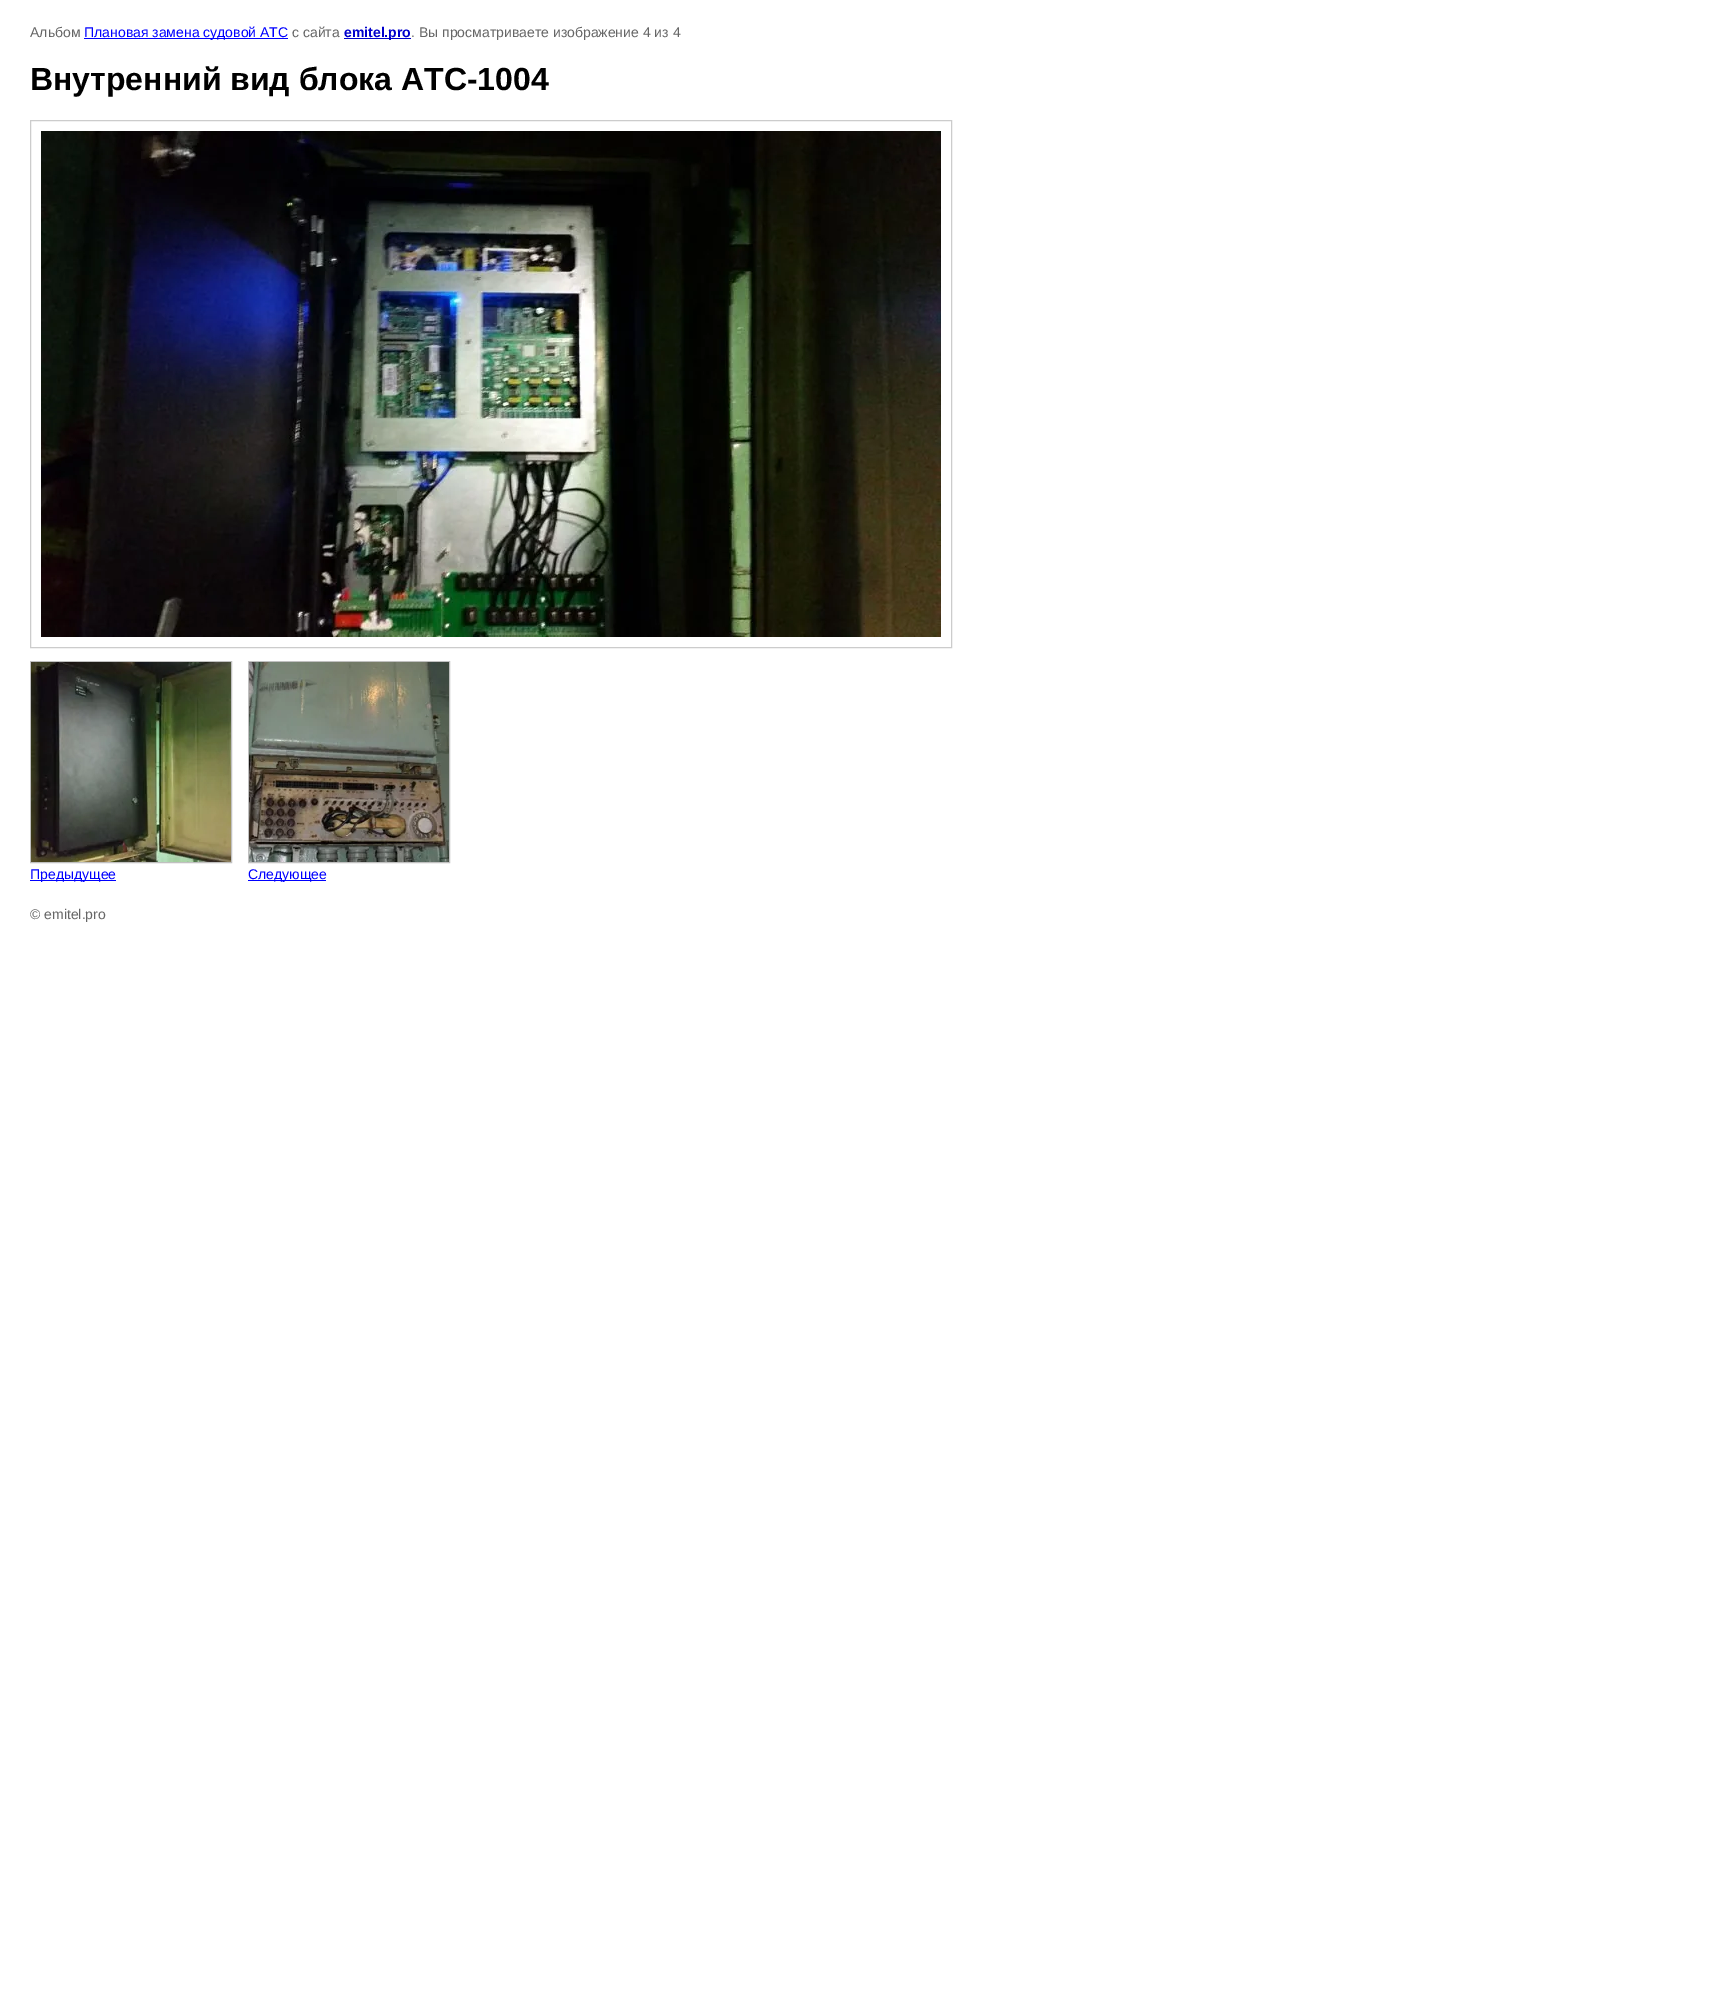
%!PS
<< /PageSize [1726 1991] >> setpagedevice
/co { dup -16 bitshift 255 div exch dup -8 bitshift 255 and 255 div exch 255 and 255 div setrgbcolor } def
/fn { [ exch dup neg 0 0 3 -1 roll 0 0 ] selectfont } def
/tx { co fn moveto show } def
/bx { co rectfill } def
/im { 5 dict begin { /h /w /y /x /name } { exch def } forall
  gsave x y translate w h scale
  w h 8 [w 0 0 h 0 0] name (r) file false 3 colorimage grestore end } def
0 1991 translate 1 -1 scale
4 setmiterlimit
0 0 1726 1991 16#FFFFFF bx
84 38 204 1 16#0000FF bx
344 38 67 1 16#0000CC bx
16#CCCCCC co
30.5 120.5 921 527 rectstroke
(media/1.raw) 41 131 900 506 im
16#C0C0C0 co
30.5 661.5 201 201 rectstroke
(media/2.raw) 31 662 200 200 im
30 880 86 1 16#0000FF bx
16#C0C0C0 co
248.5 661.5 201 201 rectstroke
(media/3.raw) 249 662 200 200 im
248 880 78 1 16#0000FF bx
(Альбом) 30 37 /LiberationSans-Regular 14 16#666666 tx
(Плановая замена судовой АТС) 84 37 /LiberationSans-Regular 14 16#0000FF tx
(с сайта) 292 37 /LiberationSans-Regular 14 16#666666 tx
(emitel.pro) 344 37 /LiberationSans-Bold 14 16#0000CC tx
(. Вы просматриваете изображение 4 из 4) 411 37 /LiberationSans-Regular 14 16#666666 tx
(Внутренний вид блока АТС-1004) 30 90 /LiberationSans-Bold 32 16#000000 tx
(Предыдущее) 30 879 /LiberationSans-Regular 14 16#0000FF tx
(Следующее) 248 879 /LiberationSans-Regular 14 16#0000FF tx
(© emitel.pro) 30 919 /LiberationSans-Regular 14 16#666666 tx
showpage
